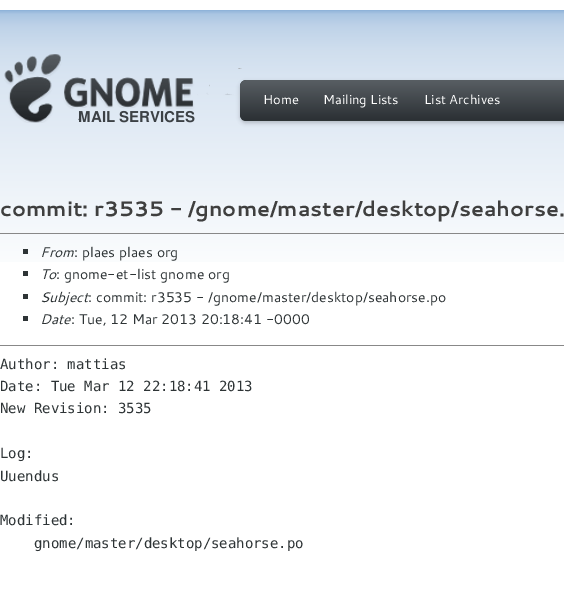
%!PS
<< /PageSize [564 589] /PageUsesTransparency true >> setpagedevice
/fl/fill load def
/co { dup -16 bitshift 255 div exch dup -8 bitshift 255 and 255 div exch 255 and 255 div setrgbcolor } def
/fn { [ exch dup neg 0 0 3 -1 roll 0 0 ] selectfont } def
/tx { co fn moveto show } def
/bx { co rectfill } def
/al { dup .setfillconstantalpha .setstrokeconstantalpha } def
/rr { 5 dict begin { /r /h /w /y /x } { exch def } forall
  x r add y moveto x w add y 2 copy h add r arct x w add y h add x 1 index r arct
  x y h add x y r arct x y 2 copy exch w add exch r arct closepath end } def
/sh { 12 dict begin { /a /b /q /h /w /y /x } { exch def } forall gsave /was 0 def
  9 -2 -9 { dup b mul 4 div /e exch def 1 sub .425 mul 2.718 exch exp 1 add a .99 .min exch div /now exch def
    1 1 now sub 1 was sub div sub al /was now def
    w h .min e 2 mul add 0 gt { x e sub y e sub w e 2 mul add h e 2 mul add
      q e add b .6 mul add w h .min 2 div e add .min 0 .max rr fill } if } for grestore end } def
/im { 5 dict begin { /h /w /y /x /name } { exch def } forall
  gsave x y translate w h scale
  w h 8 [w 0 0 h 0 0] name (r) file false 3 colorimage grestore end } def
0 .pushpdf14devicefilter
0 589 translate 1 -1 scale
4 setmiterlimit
0 0 564 589 16#FFFFFF bx
(media/1.raw) 0 10 564 252 im
(media/2.raw) 4 54 238 69 im
16#000000 co
240 82 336 41 6 2 .2 sh
16#2E3436 co
240 80 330 41 6 rr fl
(media/3.raw) 240 80 324 40 im
0 233 564 1 16#888888 bx
23 249 5 5 16#2E3436 bx
23 271 5 5 16#2E3436 bx
23 294 5 5 16#2E3436 bx
23 316 5 5 16#2E3436 bx
0 345 564 1 16#888888 bx
(Home) 263 104 /Cantarell-Regular 13 16#FFFFFF tx
(Mailing Lists) 323 104 /Cantarell-Regular 13 16#FFFFFF tx
(List Archives) 424 104 /Cantarell-Regular 13 16#FFFFFF tx
(commit: r3535 - /gnome/master/desktop/seahorse.) 0 216 /Cantarell-Bold 21 16#3F3F3F tx
(From) 40 257 /Cantarell-Italic 14 16#2E3436 tx
(: plaes plaes org) 74 257 /Cantarell-Regular 14 16#2E3436 tx
(To) 40 279 /Cantarell-Italic 14 16#2E3436 tx
(: gnome-et-list gnome org) 56 279 /Cantarell-Regular 14 16#2E3436 tx
(Subject) 40 302 /Cantarell-Italic 14 16#2E3436 tx
(: commit: r3535 - /gnome/master/desktop/seahorse.po) 88 302 /Cantarell-Regular 14 16#2E3436 tx
(Date) 40 324 /Cantarell-Italic 14 16#2E3436 tx
(: Tue, 12 Mar 2013 20:18:41 -0000) 71 324 /Cantarell-Regular 14 16#2E3436 tx
(Author: mattias) 0 369 /DejaVuSansMono-Regular 14 16#2E3436 tx
(Date: Tue Mar 12 22:18:41 2013) 0 391 /DejaVuSansMono-Regular 14 16#2E3436 tx
(New Revision: 3535) 0 413 /DejaVuSansMono-Regular 14 16#2E3436 tx
(Log:) 0 458 /DejaVuSansMono-Regular 14 16#2E3436 tx
(Uuendus) 0 481 /DejaVuSansMono-Regular 14 16#2E3436 tx
(Modified:) 0 525 /DejaVuSansMono-Regular 14 16#2E3436 tx
(gnome/master/desktop/seahorse.po) 34 548 /DejaVuSansMono-Regular 14 16#2E3436 tx
.poppdf14devicefilter showpage
